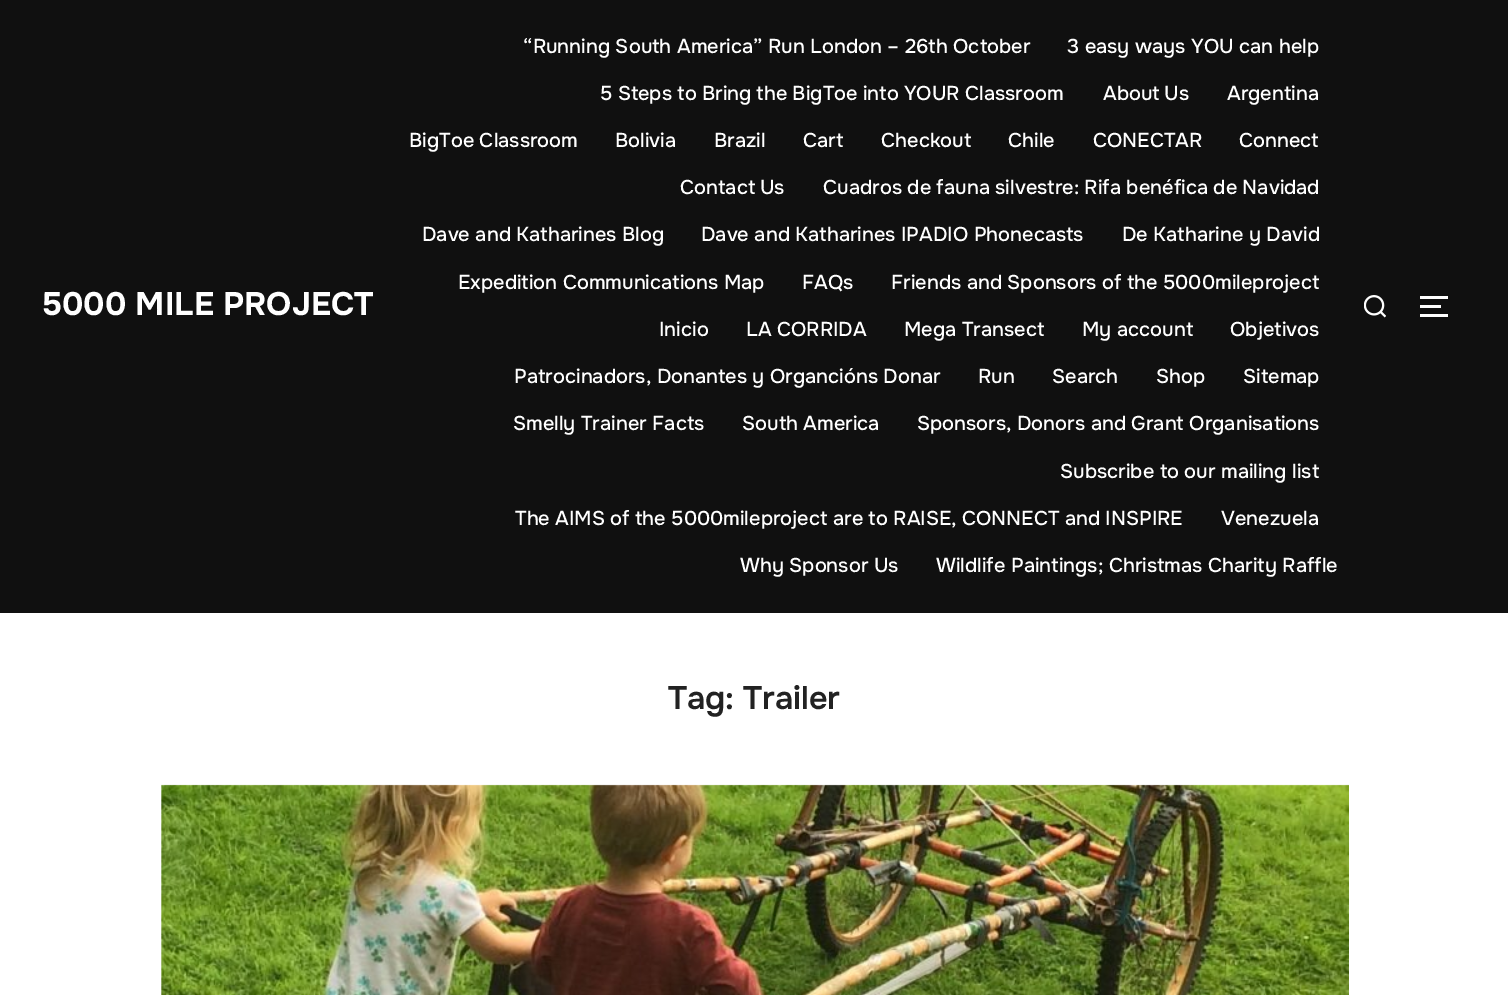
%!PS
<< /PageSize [1508 995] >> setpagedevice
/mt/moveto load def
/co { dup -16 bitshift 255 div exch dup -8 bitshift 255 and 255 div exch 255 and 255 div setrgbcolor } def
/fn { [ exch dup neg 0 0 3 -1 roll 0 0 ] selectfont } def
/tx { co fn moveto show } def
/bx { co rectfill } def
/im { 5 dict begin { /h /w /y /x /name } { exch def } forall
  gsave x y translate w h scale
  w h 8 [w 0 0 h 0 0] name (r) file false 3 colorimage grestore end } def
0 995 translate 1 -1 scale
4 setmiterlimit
0 0 1508 995 16#FFFFFF bx
0 0 1508 613 16#101010 bx
(media/1.raw) 1364 295 22 23 im
1420 296 28 3 16#FFFFFF bx
1420 305 21 3 16#FFFFFF bx
1420 314 28 3 16#FFFFFF bx
(media/2.raw) 161 784 1188 211 im
(5000 MILE PROJECT) 42 315 /Onest-Bold 32.5 16#FFFFFF tx
(“Running South America” Run London – 26th October) 523 53 /Onest-Medium 20 16#FFFFFF tx
(3 easy ways YOU can help) 1067 53 /Onest-Medium 20 16#FFFFFF tx
600 100 mt -.25 0 32 (5 Steps to Bring the BigToe into YOUR Classroom) widthshow
1103 100 mt -1 0 32 (About Us) widthshow
(Argentina) 1227 100 /Onest-Medium 20 16#FFFFFF tx
(BigToe Classroom) 409 147 /Onest-Medium 20 16#FFFFFF tx
(Bolivia) 615 147 /Onest-Medium 20 16#FFFFFF tx
(Brazil) 714 147 /Onest-Medium 20 16#FFFFFF tx
(Cart) 803 147 /Onest-Medium 20 16#FFFFFF tx
(Checkout) 881 147 /Onest-Medium 20 16#FFFFFF tx
(Chile) 1008 147 /Onest-Medium 20 16#FFFFFF tx
(CONECTAR) 1093 147 /Onest-Medium 20 16#FFFFFF tx
(Connect) 1239 147 /Onest-Medium 20 16#FFFFFF tx
680 194 mt -1 0 32 (Contact Us) widthshow
(Cuadros de fauna silvestre: Rifa benéfica de Navidad) 823 194 /Onest-Medium 20 16#FFFFFF tx
(Dave and Katharines Blog) 422 241 /Onest-Medium 20 16#FFFFFF tx
(Dave and Katharines IPADIO Phonecasts) 701 241 /Onest-Medium 20 16#FFFFFF tx
(De Katharine y David) 1122 241 /Onest-Medium 20 16#FFFFFF tx
(Expedition Communications Map) 458 289 /Onest-Medium 20 16#FFFFFF tx
(FAQs) 802 289 /Onest-Medium 20 16#FFFFFF tx
(Friends and Sponsors of the 5000mileproject) 891 289 /Onest-Medium 20 16#FFFFFF tx
(Inicio) 659 336 /Onest-Medium 20 16#FFFFFF tx
(LA CORRIDA) 746 336 /Onest-Medium 20 16#FFFFFF tx
(Mega Transect) 904 336 /Onest-Medium 20 16#FFFFFF tx
(My account) 1082 336 /Onest-Medium 20 16#FFFFFF tx
(Objetivos) 1230 336 /Onest-Medium 20 16#FFFFFF tx
(Patrocinadors, Donantes y Organcións Donar) 514 383 /Onest-Medium 20 16#FFFFFF tx
(Run) 978 383 /Onest-Medium 20 16#FFFFFF tx
(Search) 1052 383 /Onest-Medium 20 16#FFFFFF tx
(Shop) 1156 383 /Onest-Medium 20 16#FFFFFF tx
(Sitemap) 1243 383 /Onest-Medium 20 16#FFFFFF tx
(Smelly Trainer Facts) 513 430 /Onest-Medium 20 16#FFFFFF tx
(South America) 742 430 /Onest-Medium 20 16#FFFFFF tx
(Sponsors, Donors and Grant Organisations) 917 430 /Onest-Medium 20 16#FFFFFF tx
(Subscribe to our mailing list) 1060 478 /Onest-Medium 20 16#FFFFFF tx
515 525 mt -.1 0 32 (The AIMS of the 5000mileproject are to RAISE, CONNECT and INSPIRE) widthshow
(Venezuela) 1221 525 /Onest-Medium 20 16#FFFFFF tx
(Why Sponsor Us) 740 572 /Onest-Medium 20 16#FFFFFF tx
(Wildlife Paintings; Christmas Charity Raffle) 936 572 /Onest-Medium 20 16#FFFFFF tx
(Tag: Trailer) 668 709 /Onest-SemiBold 32.5 16#222222 tx
showpage
